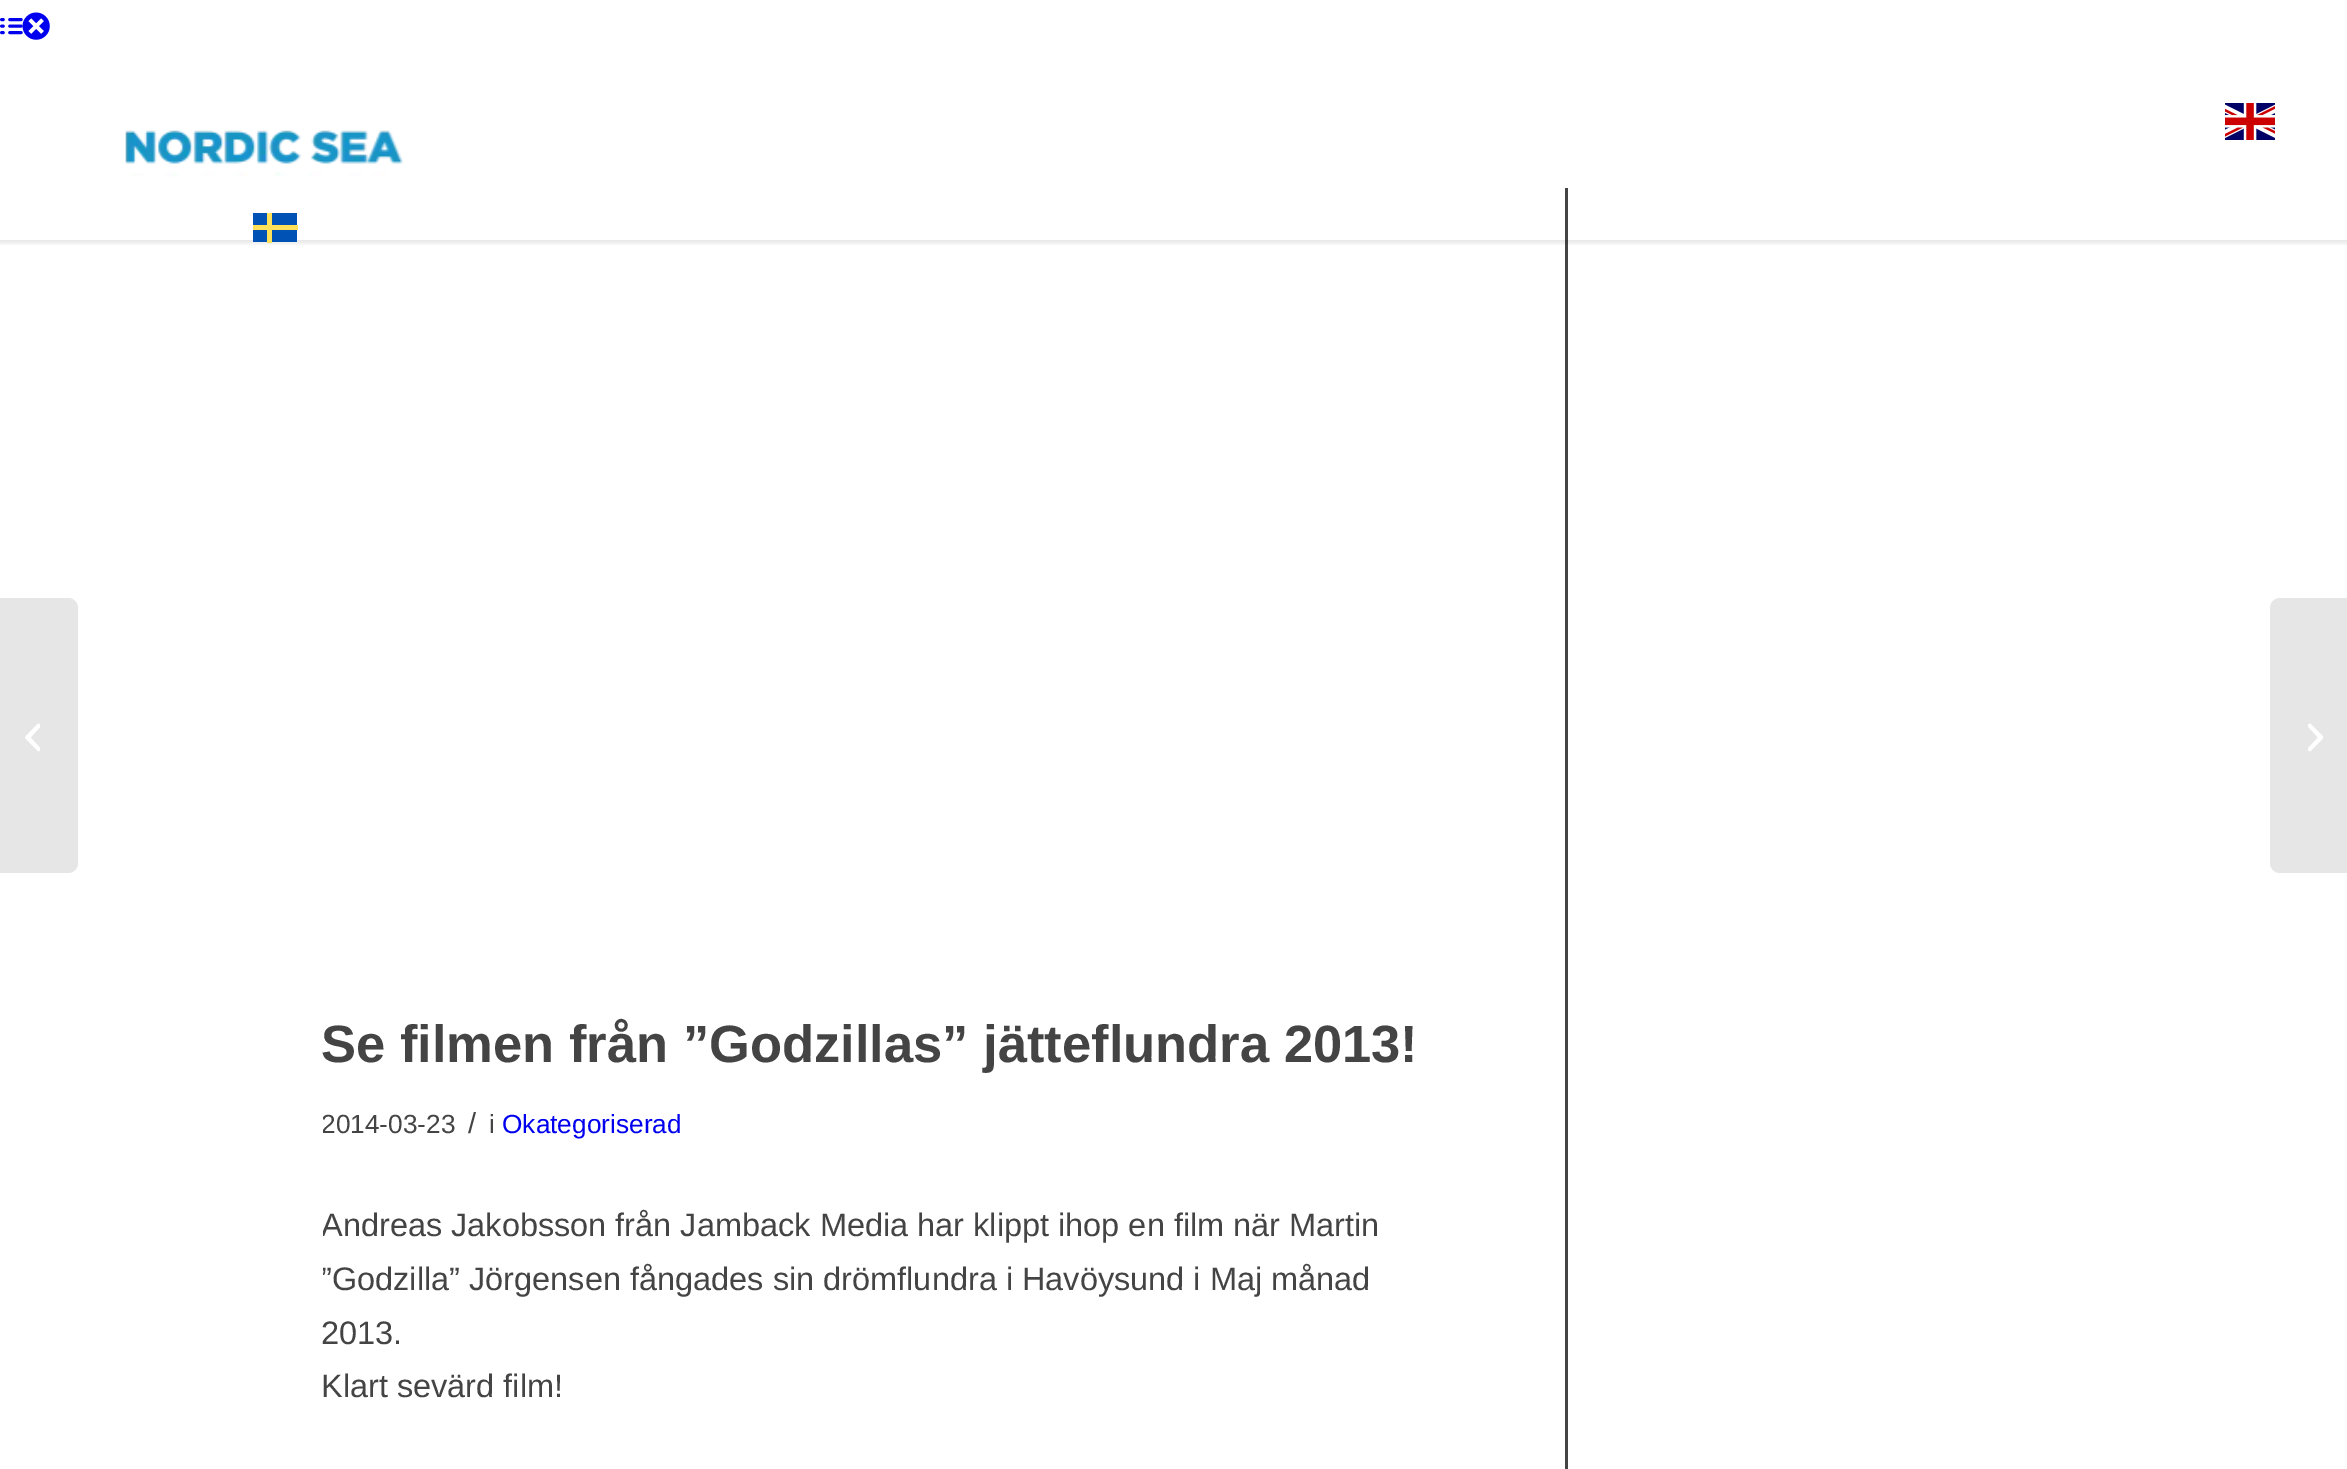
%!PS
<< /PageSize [2347 1469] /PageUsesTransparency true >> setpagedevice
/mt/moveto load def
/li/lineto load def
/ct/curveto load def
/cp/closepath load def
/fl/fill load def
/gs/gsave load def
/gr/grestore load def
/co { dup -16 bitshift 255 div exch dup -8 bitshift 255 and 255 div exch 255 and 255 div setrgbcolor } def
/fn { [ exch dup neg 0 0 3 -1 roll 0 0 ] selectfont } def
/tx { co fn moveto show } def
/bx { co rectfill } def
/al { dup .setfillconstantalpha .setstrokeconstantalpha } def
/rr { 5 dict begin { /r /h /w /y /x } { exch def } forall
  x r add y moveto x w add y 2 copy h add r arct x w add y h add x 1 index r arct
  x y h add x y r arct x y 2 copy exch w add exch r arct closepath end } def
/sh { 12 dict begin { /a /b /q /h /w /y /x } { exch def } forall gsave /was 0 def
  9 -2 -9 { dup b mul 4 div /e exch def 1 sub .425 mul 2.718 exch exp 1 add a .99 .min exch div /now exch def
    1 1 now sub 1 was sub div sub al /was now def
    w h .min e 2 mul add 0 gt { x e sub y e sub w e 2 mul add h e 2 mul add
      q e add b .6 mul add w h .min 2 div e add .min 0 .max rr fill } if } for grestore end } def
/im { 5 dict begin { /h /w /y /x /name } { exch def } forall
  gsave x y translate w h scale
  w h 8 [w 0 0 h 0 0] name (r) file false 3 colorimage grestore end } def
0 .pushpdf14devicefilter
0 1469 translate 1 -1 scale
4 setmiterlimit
0 0 2347 1469 16#FFFFFF bx
1565 188 3 1281 16#444444 bx
gs
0 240 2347 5 rectclip
16#000000 co
-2 -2 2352 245 0 2.5 .1 sh
gr
(media/1.raw) 0 18 23 17 im
(media/2.raw) 22 12 28 28 im
(media/3.raw) 2225 103 50 37 im
253 213 44 29 16#0052B4 bx
267 213 5 30 16#FFE15A bx
253 225 45 5 16#FFE15A bx
(media/4.raw) 125 130 279 47 im
16#E6E6E6 co
0 598 mt 68 598 li 73.5 598 78 602.5 78 608 ct 78 863 li 78 868.5 73.5 873 68 873 ct 0 873 li cp fl
(media/5.raw) 25 723 15 29 im
2280 598 mt 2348 598 li 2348 873 li 2280 873 li 2274.5 873 2270 868.5 2270 863 ct 2270 608 li 2270 602.5 2274.5 598 2280 598 ct cp fl
(media/6.raw) 2308 723 15 29 im
(Se filmen från ”Godzillas” jätteflundra 2013!) 321 1062 /LiberationSans-Bold 52.5 16#444444 tx
gs
323 1010 1242 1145 rectclip
(2014-03-23) 321 1133 /LiberationSans-Regular 26.25 16#444444 tx
gr
(/) 468 1133 /LiberationSans-Regular 29 16#444444 tx
(i) 489 1133 /LiberationSans-Regular 26.25 16#444444 tx
(Okategoriserad) 502 1133 /LiberationSans-Regular 26.25 16#0000EE tx
gs
323 1010 1242 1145 rectclip
(Andreas Jakobsson från Jamback Media har klippt ihop en film när Martin) 321 1236 /LiberationSans-Regular 32.5 16#444444 tx
(”Godzilla” Jörgensen fångades sin drömflundra i Havöysund i Maj månad) 321 1290 /LiberationSans-Regular 32.5 16#444444 tx
gr
(2013.) 321 1344 /LiberationSans-Regular 32.5 16#444444 tx
(Klart sevärd film!) 321 1397 /LiberationSans-Regular 32.5 16#444444 tx
.poppdf14devicefilter showpage
